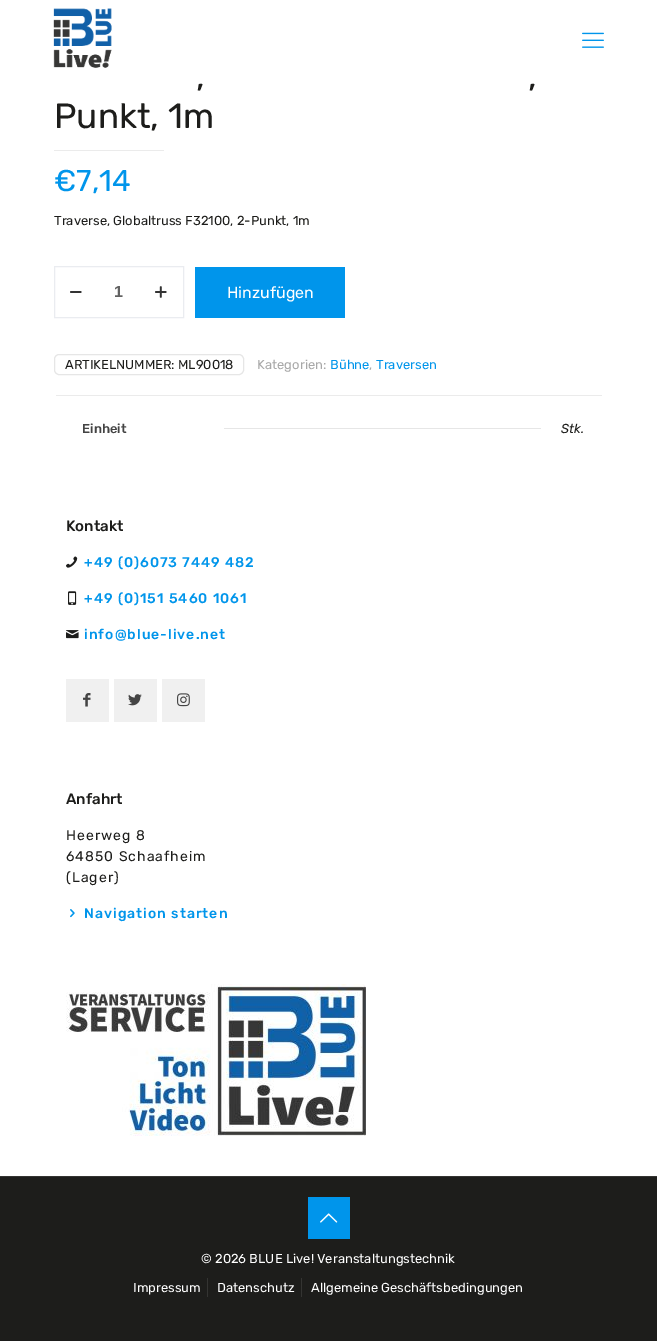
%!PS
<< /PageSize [657 1341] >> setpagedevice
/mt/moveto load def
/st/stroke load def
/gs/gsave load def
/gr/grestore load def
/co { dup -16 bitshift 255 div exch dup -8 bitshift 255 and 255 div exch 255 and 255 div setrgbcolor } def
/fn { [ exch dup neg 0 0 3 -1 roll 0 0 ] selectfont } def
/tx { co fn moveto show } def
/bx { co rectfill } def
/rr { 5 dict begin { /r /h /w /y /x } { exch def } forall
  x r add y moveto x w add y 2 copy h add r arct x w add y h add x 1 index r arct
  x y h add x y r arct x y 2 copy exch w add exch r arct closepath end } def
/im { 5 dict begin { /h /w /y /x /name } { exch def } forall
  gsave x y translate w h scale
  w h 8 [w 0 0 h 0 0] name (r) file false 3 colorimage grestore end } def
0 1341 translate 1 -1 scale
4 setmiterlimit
0 0 657 1341 16#FFFFFF bx
(media/1.raw) 53 8 59 60 im
(media/2.raw) 582 32 22 16 im
54 150 110 1 16#EBEBEB bx
16#EAECF0 co
54.5 266.5 129 51 rectstroke
(media/3.raw) 70 291 12 2 im
(media/4.raw) 155 286 12 12 im
195 267 150 51 16#0095EB bx
16#E6E6E6 co
54.5 354.5 189 20 4.5 rr st
gs
54 395 550 71 5 rr clip newpath
54 395 550 1 16#EBEBEB bx
gr
224 428 317 1 16#E6E6E6 bx
0 1177 657 164 16#1D1D1B bx
(media/5.raw) 66 556 12 12 im
(media/6.raw) 68 591 9 14 im
(media/7.raw) 66 630 13 9 im
66 679 43 43 16#F0F0F0 bx
(media/8.raw) 83 693 8 14 im
114 679 43 43 16#F0F0F0 bx
(media/9.raw) 128 694 14 12 im
162 679 43 43 16#F0F0F0 bx
(media/10.raw) 177 693 13 14 im
(media/11.raw) 70 909 5 9 im
(media/12.raw) 66 984 300 152 im
0 1176 657 1 16#343432 bx
308 1197 42 42 16#0095EB bx
(media/13.raw) 320 1213 18 10 im
207 1278 1 19 16#343432 bx
301 1278 1 19 16#343432 bx
(,) 196 88 /Rubik-Regular 35 16#1D1D1B tx
(,) 528 88 /Rubik-Regular 35 16#1D1D1B tx
(Punkt, 1m) 54 128 /Rubik-Regular 35 16#1D1D1B tx
(€7,14) 54 191 /Rubik-Regular 30 16#0095EB tx
(Traverse, Globaltruss F32100, 2-Punkt, 1m) 54 225 /Rubik-Regular 13 16#1D1D1B tx
(1) 114 297 /LiberationSans-Bold 16 16#626262 tx
(Hinzufügen) 227 298 /Rubik-Regular 16 16#FFFFFF tx
(ARTIKELNUMMER: ML90018) 65 369 /Rubik-Regular 13 16#1D1D1B tx
(Kategorien:) 257 369 /Rubik-Regular 13 16#A8A8A8 tx
(Bühne) 330 369 /Rubik-Regular 13 16#0095EB tx
(,) 369 369 /Rubik-Regular 13 16#A8A8A8 tx
(Traversen) 376 369 /Rubik-Regular 13 16#0095EB tx
(Einheit) 82 433 /Rubik-Medium 13 16#444444 tx
(Stk.) 561 433 /Rubik-Italic 13 16#1D1D1B tx
(Kontakt) 66 531 /Rubik-Medium 15 16#1D1D1B tx
/Rubik-Medium 14 fn
16#0095EB co
84 567 mt 1 0 (+49 \(0\)6073 7449 482) ashow
84 603 mt 1 0 (+49 \(0\)151 5460 1061) ashow
84 639 mt 1 0 (info@blue-live.net) ashow
(Anfahrt) 66 804 /Rubik-Medium 15 16#1D1D1B tx
/Rubik-Regular 14 fn
66 840 mt 1 0 (Heerweg 8) ashow
66 861 mt 1 0 (64850 Schaafheim) ashow
66 882 mt 1 0 (\(Lager\)) ashow
/Rubik-Medium 14 fn
16#0095EB co
84 918 mt 1 0 (Navigation starten) ashow
(© 2026 BLUE Live! Veranstaltungstechnik) 201 1263 /Rubik-Regular 13 16#FFFFFF tx
(Impressum) 133 1292 /Rubik-Regular 13 16#FFFFFF tx
(Datenschutz) 217 1292 /Rubik-Regular 13 16#FFFFFF tx
(Allgemeine Geschäftsbedingungen) 311 1292 /Rubik-Regular 13 16#FFFFFF tx
showpage
